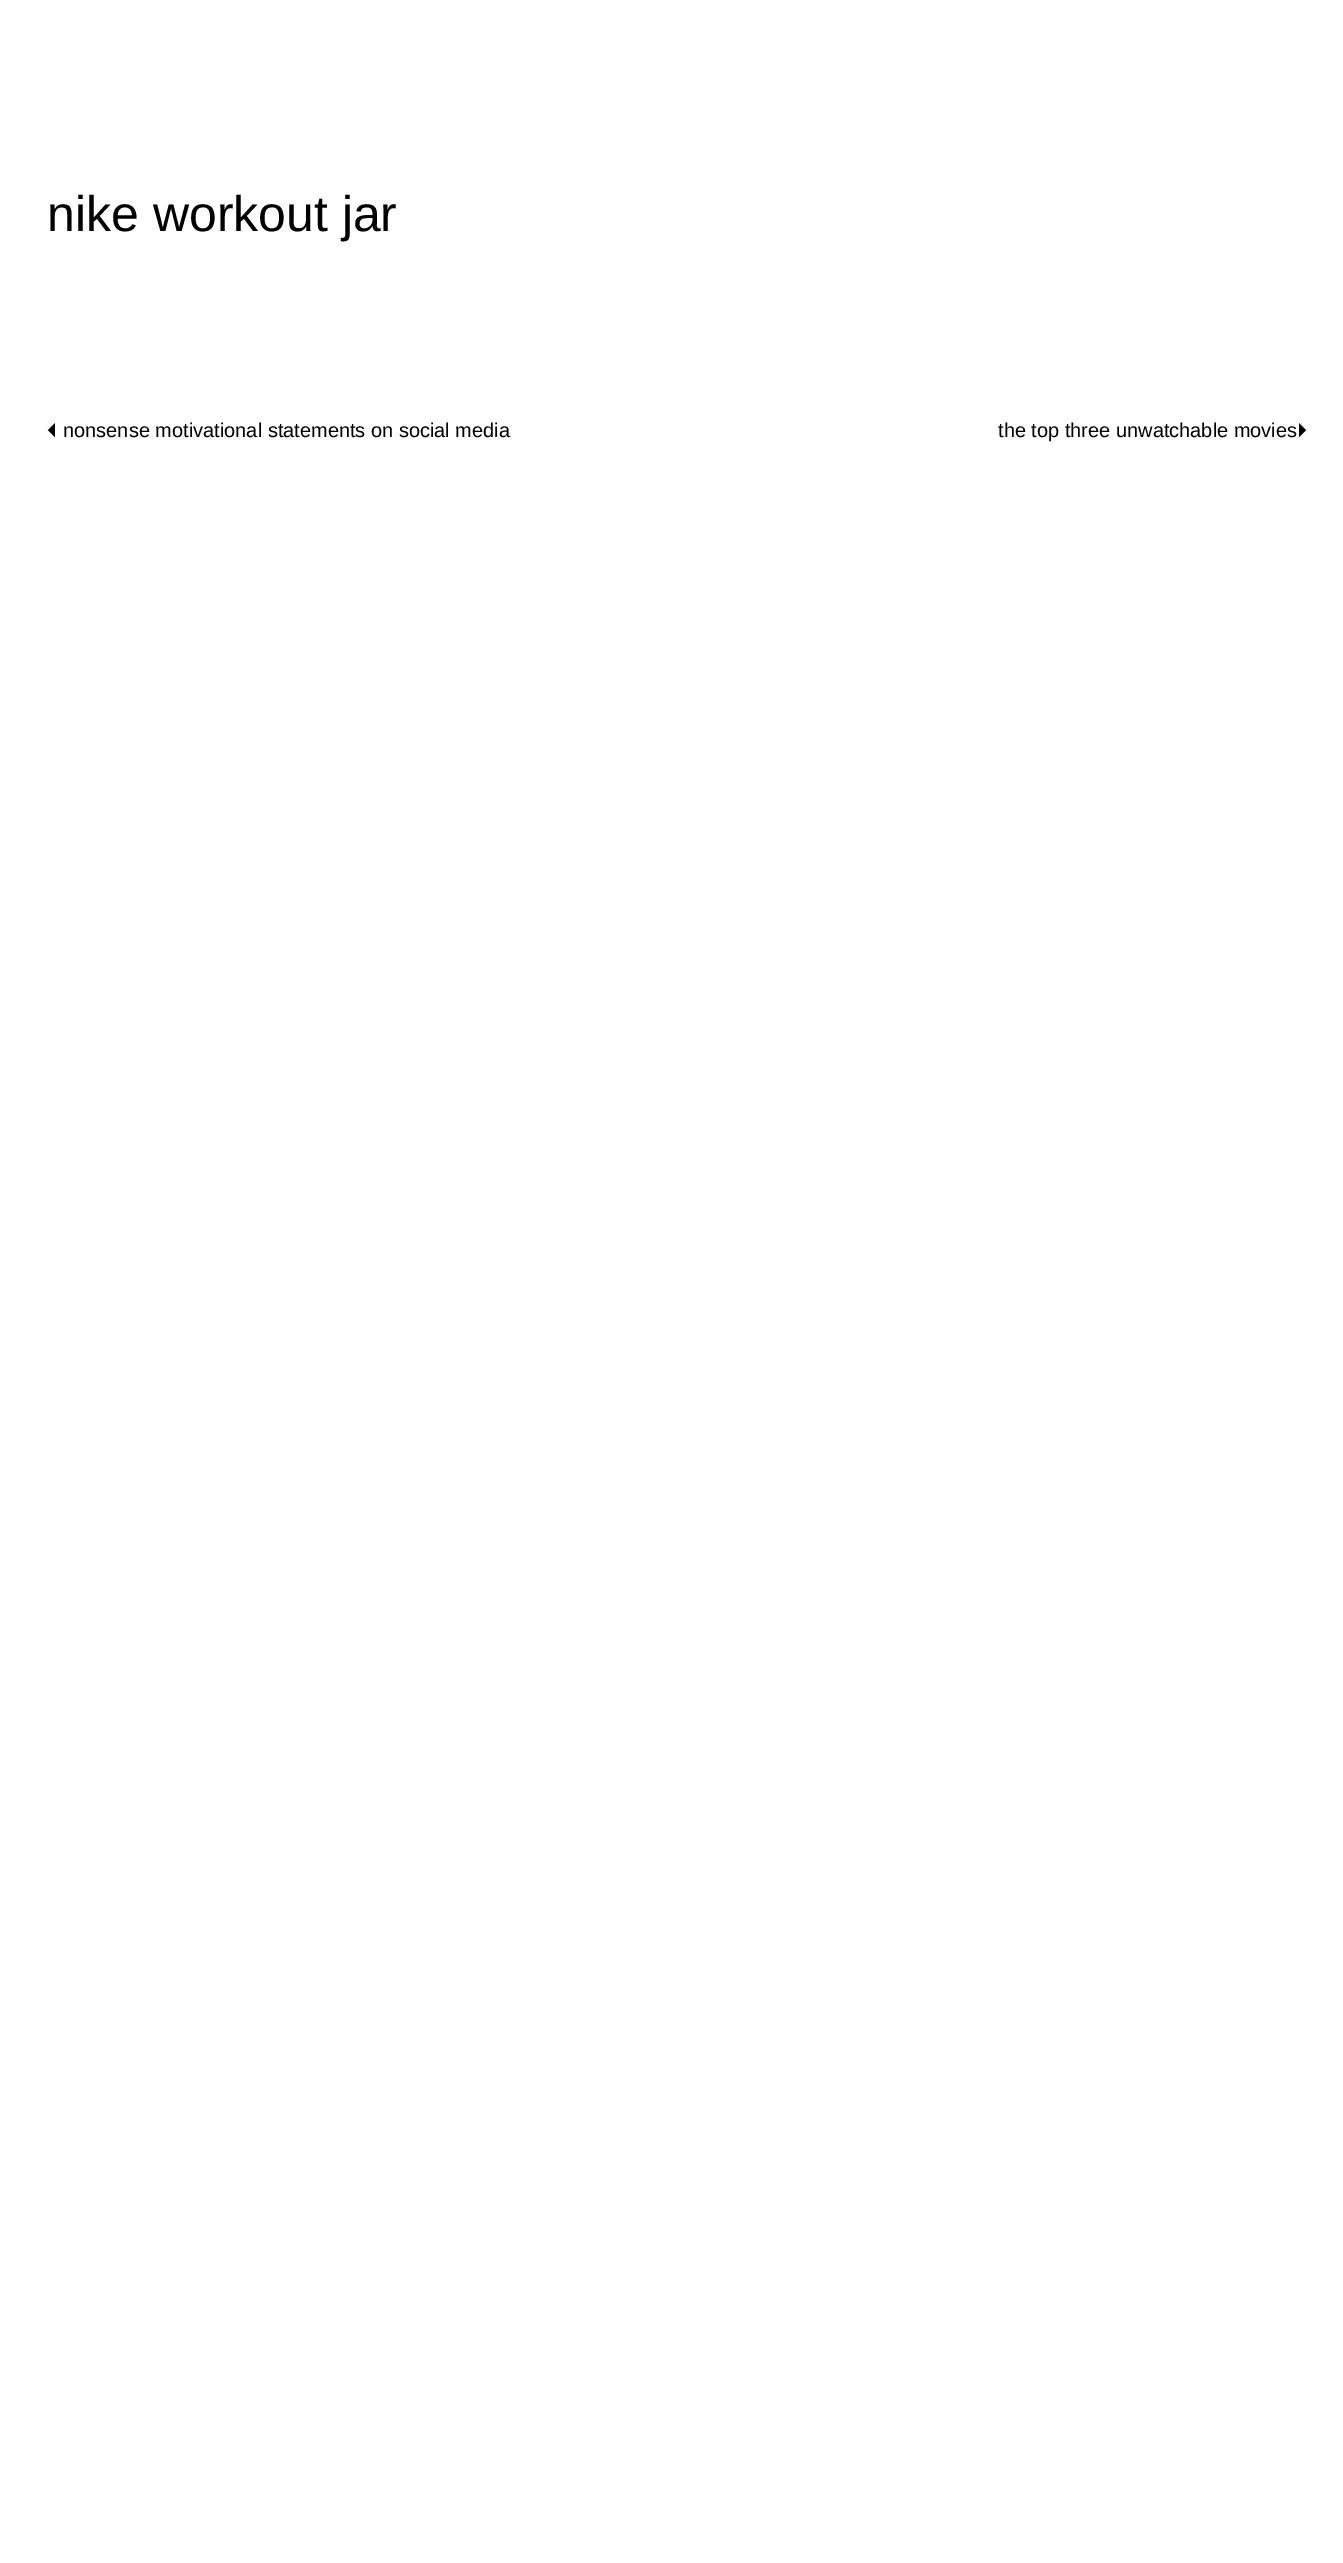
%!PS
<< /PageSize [1343 2563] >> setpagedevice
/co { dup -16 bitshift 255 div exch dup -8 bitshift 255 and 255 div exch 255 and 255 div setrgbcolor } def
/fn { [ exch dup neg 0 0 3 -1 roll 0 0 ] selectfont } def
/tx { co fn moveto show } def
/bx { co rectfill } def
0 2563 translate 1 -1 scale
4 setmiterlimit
0 0 1343 2563 16#FFFFFF bx
(nike workout jar) 47 231 /LiberationSans-Regular 50 16#000000 tx
(⏴) 47 437 /FreeSans-Regular 20 16#000000 tx
(nonsense motivational statements on social media) 63 437 /LiberationSans-Regular 20 16#000000 tx
(the top three unwatchable movies) 998 437 /LiberationSans-Regular 20 16#000000 tx
(⏵) 1297 437 /FreeSans-Regular 20 16#000000 tx
showpage
